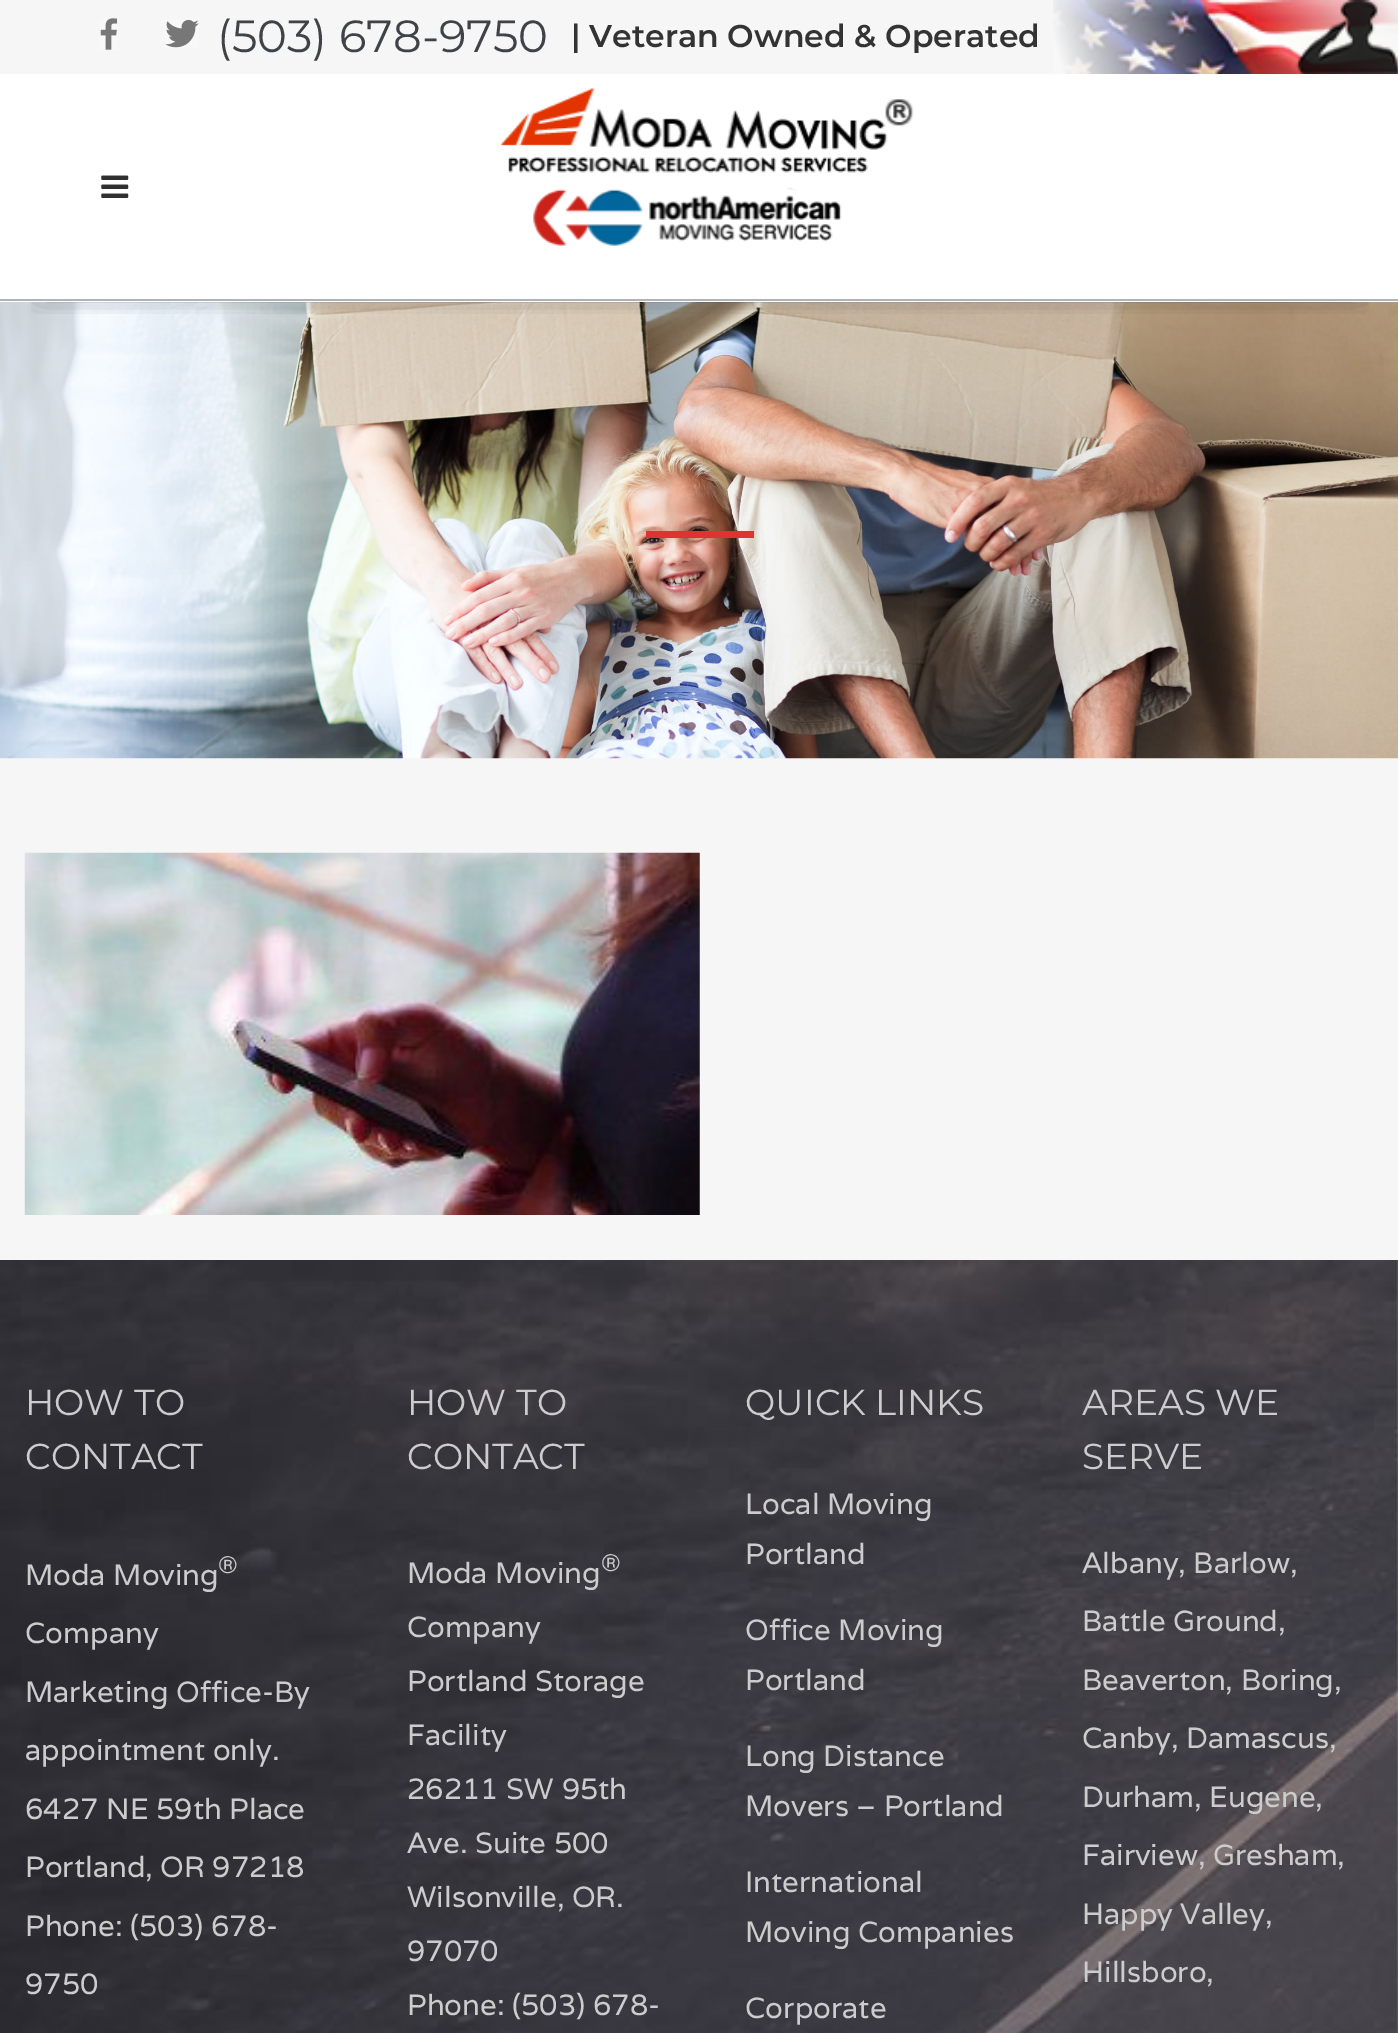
%!PS
<< /PageSize [1398 2033] /PageUsesTransparency true >> setpagedevice
/gs/gsave load def
/gr/grestore load def
/co { dup -16 bitshift 255 div exch dup -8 bitshift 255 and 255 div exch 255 and 255 div setrgbcolor } def
/fn { [ exch dup neg 0 0 3 -1 roll 0 0 ] selectfont } def
/tx { co fn moveto show } def
/bx { co rectfill } def
/al { dup .setfillconstantalpha .setstrokeconstantalpha } def
/rr { 5 dict begin { /r /h /w /y /x } { exch def } forall
  x r add y moveto x w add y 2 copy h add r arct x w add y h add x 1 index r arct
  x y h add x y r arct x y 2 copy exch w add exch r arct closepath end } def
/sh { 12 dict begin { /a /b /q /h /w /y /x } { exch def } forall gsave /was 0 def
  9 -2 -9 { dup b mul 4 div /e exch def 1 sub .425 mul 2.718 exch exp 1 add a .99 .min exch div /now exch def
    1 1 now sub 1 was sub div sub al /was now def
    w h .min e 2 mul add 0 gt { x e sub y e sub w e 2 mul add h e 2 mul add
      q e add b .6 mul add w h .min 2 div e add .min 0 .max rr fill } if } for grestore end } def
/im { 5 dict begin { /h /w /y /x /name } { exch def } forall
  gsave x y translate w h scale
  w h 8 [w 0 0 h 0 0] name (r) file false 3 colorimage grestore end } def
0 .pushpdf14devicefilter
0 2033 translate 1 -1 scale
4 setmiterlimit
0 0 1398 2033 16#F6F6F6 bx
(media/6.raw) 0 302 1398 457 im
gs
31 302 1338 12 rectclip
16#000000 co
43 70 1314 216 0 13.5 1 sh
gr
(media/1.raw) 100 18 18 32 im
(media/2.raw) 165 19 34 29 im
(media/3.raw) 1053 0 345 74 im
0 74 1398 228 16#FFFFFF bx
0 299 1398 2 16#AEB3B7 bx
(media/4.raw) 101 175 28 23 im
(media/5.raw) 501 88 413 158 im
646 531 108 7 16#DD3333 bx
(media/7.raw) 24 852 676 363 im
(media/8.raw) 0 1260 1398 773 im
(\(503\) 678-9750) 217 52 /Montserrat-Regular 45 16#3F4348 tx
(| Veteran Owned & Operated) 571 47 /Montserrat-SemiBold 31.5 16#333333 tx
(HOW TO) 25 1415 /Montserrat-Regular 36 16#CCCCCC tx
(CONTACT) 25 1469 /Montserrat-Regular 36 16#CCCCCC tx
(Moda Moving) 25 1585 /Varela-Regular 29.25 16#CCCCCC tx
(®) 218 1573 /Varela-Regular 24 16#CCCCCC tx
(Company) 25 1643 /Varela-Regular 29.25 16#CCCCCC tx
(Marketing Office-By) 25 1702 /Varela-Regular 29.25 16#CCCCCC tx
(appointment only.) 25 1760 /Varela-Regular 29.25 16#CCCCCC tx
(6427 NE 59th Place) 25 1819 /Varela-Regular 29.25 16#CCCCCC tx
(Portland, OR 97218) 25 1877 /Varela-Regular 29.25 16#CCCCCC tx
(Phone: \(503\) 678-) 25 1936 /Varela-Regular 29.25 16#CCCCCC tx
(9750) 25 1994 /Varela-Regular 29.25 16#CCCCCC tx
(HOW TO) 407 1415 /Montserrat-Regular 36 16#CCCCCC tx
(CONTACT) 407 1469 /Montserrat-Regular 36 16#CCCCCC tx
(Moda Moving) 407 1583 /Varela-Regular 29.25 16#CCCCCC tx
(®) 601 1571 /Varela-Regular 24 16#CCCCCC tx
(Company) 407 1637 /Varela-Regular 29.25 16#CCCCCC tx
(Portland Storage) 407 1691 /Varela-Regular 29.25 16#CCCCCC tx
(Facility) 407 1745 /Varela-Regular 29.25 16#CCCCCC tx
(26211 SW 95th) 407 1799 /Varela-Regular 29.25 16#CCCCCC tx
(Ave. Suite 500) 407 1853 /Varela-Regular 29.25 16#CCCCCC tx
(Wilsonville, OR.) 407 1907 /Varela-Regular 29.25 16#CCCCCC tx
(97070) 407 1961 /Varela-Regular 29.25 16#CCCCCC tx
(Phone: \(503\) 678-) 407 2015 /Varela-Regular 29.25 16#CCCCCC tx
(QUICK LINKS) 745 1415 /Montserrat-Regular 36 16#CCCCCC tx
(Local Moving) 745 1514 /Varela-Regular 29.25 16#CCCCCC tx
(Portland) 745 1564 /Varela-Regular 29.25 16#CCCCCC tx
(Office Moving) 745 1640 /Varela-Regular 29.25 16#CCCCCC tx
(Portland) 745 1690 /Varela-Regular 29.25 16#CCCCCC tx
(Long Distance) 745 1766 /Varela-Regular 29.25 16#CCCCCC tx
(Movers – Portland) 745 1816 /Varela-Regular 29.25 16#CCCCCC tx
(International) 745 1892 /Varela-Regular 29.25 16#CCCCCC tx
(Moving Companies) 745 1942 /Varela-Regular 29.25 16#CCCCCC tx
(Corporate) 745 2018 /Varela-Regular 29.25 16#CCCCCC tx
(AREAS WE) 1082 1415 /Montserrat-Regular 36 16#CCCCCC tx
(SERVE) 1082 1469 /Montserrat-Regular 36 16#CCCCCC tx
(Albany, Barlow,) 1082 1573 /Varela-Regular 29.25 16#CCCCCC tx
(Battle Ground,) 1082 1631 /Varela-Regular 29.25 16#CCCCCC tx
(Beaverton, Boring,) 1082 1690 /Varela-Regular 29.25 16#CCCCCC tx
(Canby, Damascus,) 1082 1748 /Varela-Regular 29.25 16#CCCCCC tx
(Durham, Eugene,) 1082 1807 /Varela-Regular 29.25 16#CCCCCC tx
(Fairview, Gresham,) 1082 1865 /Varela-Regular 29.25 16#CCCCCC tx
(Happy Valley,) 1082 1924 /Varela-Regular 29.25 16#CCCCCC tx
(Hillsboro,) 1082 1982 /Varela-Regular 29.25 16#CCCCCC tx
.poppdf14devicefilter showpage
